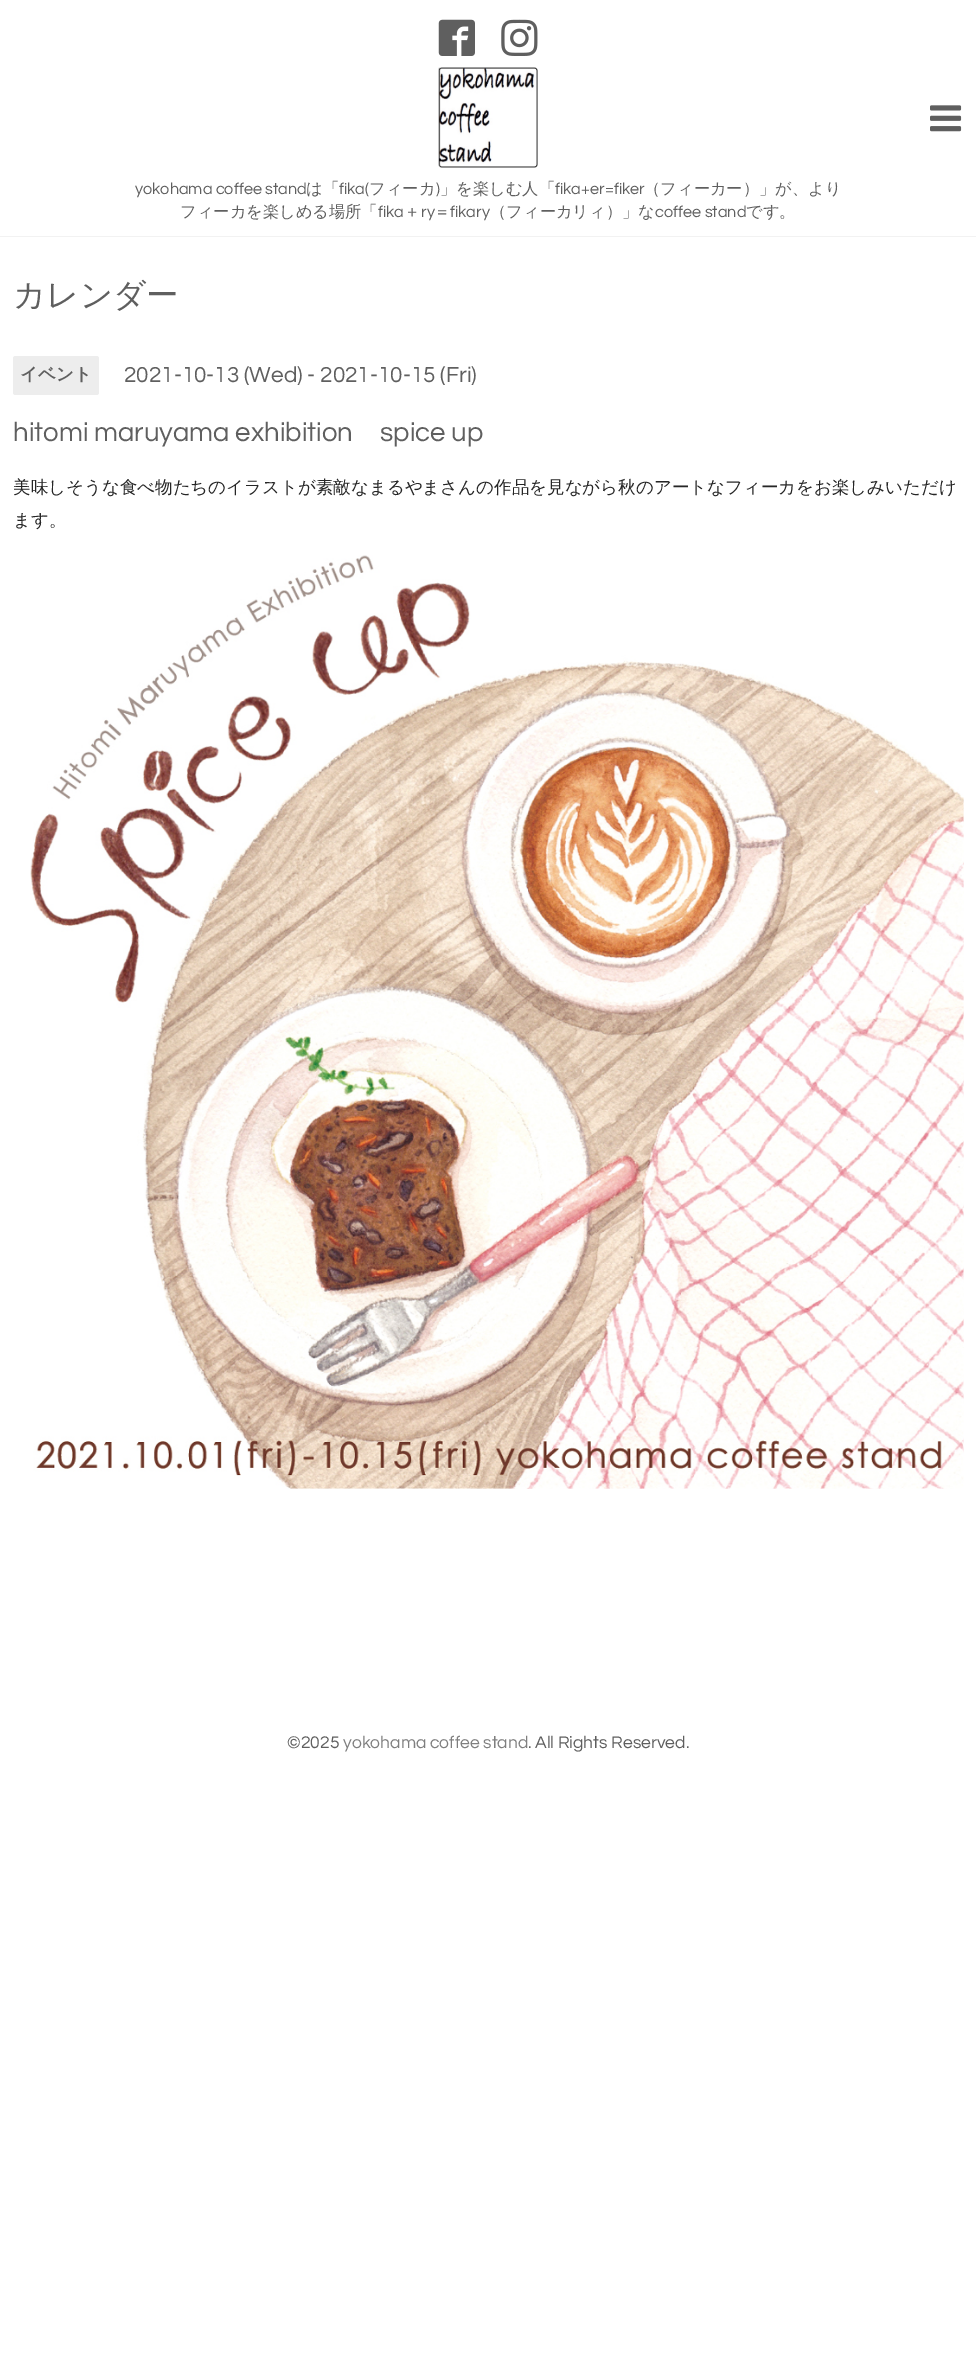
%!PS
<< /PageSize [976 2365] >> setpagedevice
/fl/fill load def
/co { dup -16 bitshift 255 div exch dup -8 bitshift 255 and 255 div exch 255 and 255 div setrgbcolor } def
/fn { [ exch dup neg 0 0 3 -1 roll 0 0 ] selectfont } def
/tx { co fn moveto show } def
/bx { co rectfill } def
/rr { 5 dict begin { /r /h /w /y /x } { exch def } forall
  x r add y moveto x w add y 2 copy h add r arct x w add y h add x 1 index r arct
  x y h add x y r arct x y 2 copy exch w add exch r arct closepath end } def
/im { 5 dict begin { /h /w /y /x /name } { exch def } forall
  gsave x y translate w h scale
  w h 8 [w 0 0 h 0 0] name (r) file false 3 colorimage grestore end } def
0 2365 translate 1 -1 scale
4 setmiterlimit
0 0 976 2365 16#FFFFFF bx
0 236 976 1 16#F2F2F2 bx
(media/1.raw) 438 19 37 37 im
(media/2.raw) 501 19 37 37 im
(media/3.raw) 930 105 32 27 im
(media/4.raw) 438 67 100 101 im
16#EDEDED co
13 356 86 39 2.5 rr fl
(media/5.raw) 30 555 934 934 im
(yokohama coffee stand) 135 194 /Questrial-Regular 16.25 16#5F5F5F tx
(は「) 306 194 /WenQuanYiZenHei-Medium 16.25 16#5F5F5F tx
(fika\() 339 194 /Questrial-Regular 16.25 16#5F5F5F tx
(フィーカ) 369 194 /WenQuanYiZenHei-Medium 16.25 16#5F5F5F tx
(\)) 436 194 /Questrial-Regular 16.25 16#5F5F5F tx
(」を楽しむ人「) 440 194 /WenQuanYiZenHei-Medium 16.25 16#5F5F5F tx
(fika+er=fiker) 555 194 /Questrial-Regular 16.25 16#5F5F5F tx
(（フィーカー）」が、より) 644 194 /WenQuanYiZenHei-Medium 16.25 16#5F5F5F tx
(フィーカを楽しめる場所「) 180 217 /WenQuanYiZenHei-Medium 16.25 16#5F5F5F tx
(fika) 378 217 /Questrial-Regular 16.25 16#5F5F5F tx
(＋) 404 217 /WenQuanYiZenHei-Medium 16.25 16#5F5F5F tx
(ry) 421 217 /Questrial-Regular 16.25 16#5F5F5F tx
(＝) 434 217 /WenQuanYiZenHei-Medium 16.25 16#5F5F5F tx
(fikary) 450 217 /Questrial-Regular 16.25 16#5F5F5F tx
(（フィーカリィ）」な) 490 217 /WenQuanYiZenHei-Medium 16.25 16#5F5F5F tx
(coffee stand) 655 217 /Questrial-Regular 16.25 16#5F5F5F tx
(です。) 746 217 /WenQuanYiZenHei-Medium 16.25 16#5F5F5F tx
(カレンダー) 13 306 /WenQuanYiZenHei-Medium 32.5 16#5F5F5F tx
(イベント) 20 380 /WenQuanYiZenHei-Bold 17.5 16#5F5F5F tx
(2021-10-13 \(Wed\) - 2021-10-15 \(Fri\)) 124 382 /Questrial-Regular 22.5 16#5F5F5F tx
(hitomi maruyama exhibition) 13 441 /Questrial-Regular 27.5 16#5F5F5F tx
(spice up) 380 441 /Questrial-Regular 27.5 16#5F5F5F tx
(美味しそうな食べ物たちのイラストが素敵なまるやまさんの作品を見ながら秋のアートなフィーカをお楽しみいただけ) 13 493 /WenQuanYiZenHei-Medium 17.5 16#262626 tx
(ます。) 13 526 /WenQuanYiZenHei-Medium 17.5 16#262626 tx
(©2025) 287 1748 /Questrial-Regular 17.5 16#5F5F5F tx
(yokohama coffee stand) 343 1748 /Questrial-Regular 17.5 16#7F7F7F tx
(. All Rights Reserved.) 528 1748 /Questrial-Regular 17.5 16#5F5F5F tx
showpage
